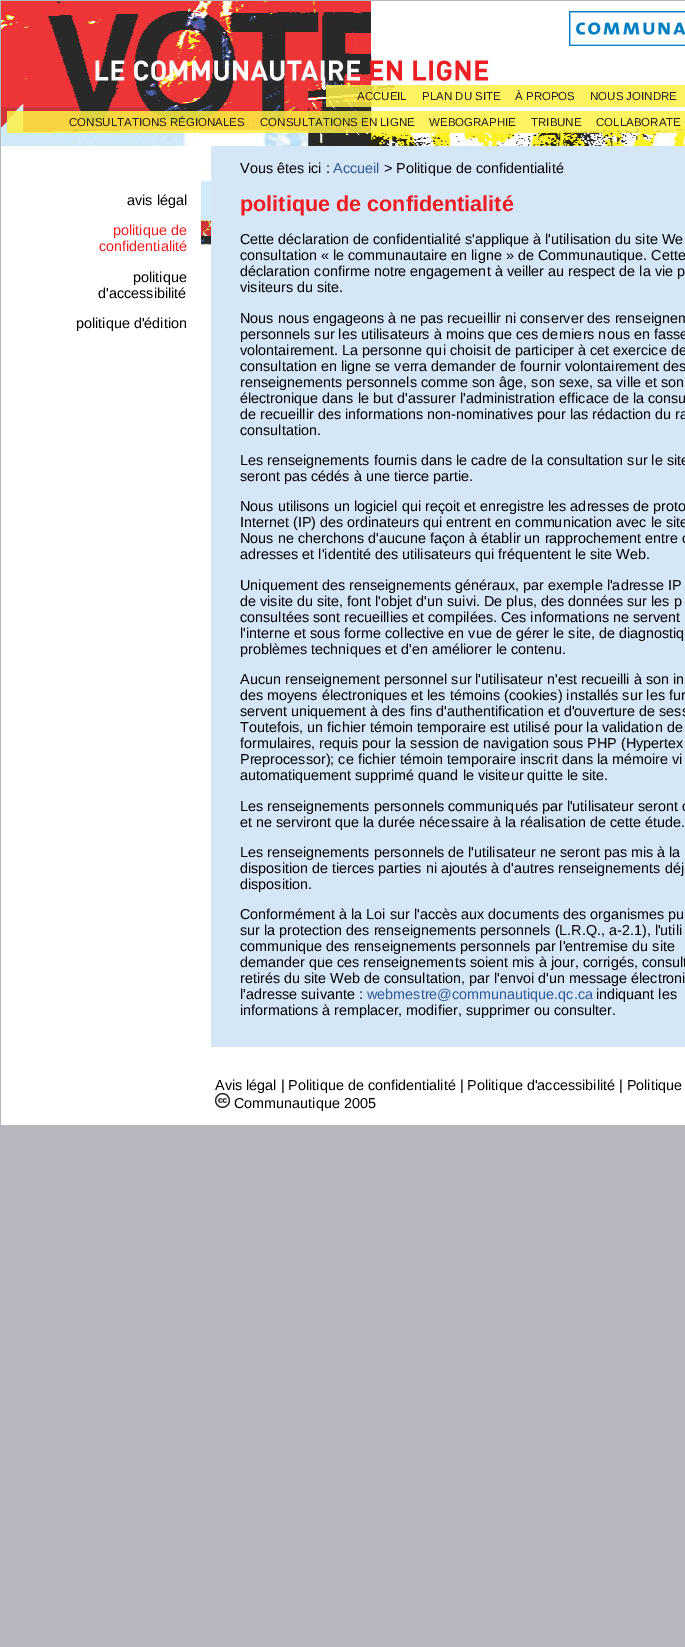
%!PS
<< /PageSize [685 1647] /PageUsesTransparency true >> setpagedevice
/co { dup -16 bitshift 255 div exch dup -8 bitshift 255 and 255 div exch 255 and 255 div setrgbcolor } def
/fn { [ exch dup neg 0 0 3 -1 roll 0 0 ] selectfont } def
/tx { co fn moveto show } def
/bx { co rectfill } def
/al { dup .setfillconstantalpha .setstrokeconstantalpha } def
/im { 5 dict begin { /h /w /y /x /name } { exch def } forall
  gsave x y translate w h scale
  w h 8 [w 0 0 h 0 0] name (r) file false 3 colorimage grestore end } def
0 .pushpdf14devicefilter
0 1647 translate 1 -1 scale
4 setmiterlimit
0 0 685 1647 16#B6B6BE bx
1 1 684 1124 16#FFFFFF bx
(media/1.raw) 1 1 370 244 im
(media/2.raw) 371 56 314 90 im
(media/3.raw) 569 11 116 35 im
0.85 al
326 85 359 22 16#FDF044 bx
7 111 678 22 16#FDF044 bx
1 al
1 146 200 99 16#FFFFFF bx
211 146 474 901 16#D5E6F7 bx
(ACCUEIL) 357 100 /LiberationSans-Regular 11.5 16#26230D tx
(PLAN DU SITE) 422 100 /LiberationSans-Regular 11.5 16#262626 tx
(À PROPOS) 515 100 /LiberationSans-Regular 11.5 16#262626 tx
(NOUS JOINDRE) 590 100 /LiberationSans-Regular 11.5 16#262626 tx
(CONSULTATIONS RÉGIONALES) 69 126 /LiberationSans-Regular 11.5 16#26230D tx
(CONSULTATIONS EN LIGNE) 260 126 /LiberationSans-Regular 11.5 16#26230D tx
(WEBOGRAPHIE) 429 126 /LiberationSans-Regular 11.5 16#26230D tx
(TRIBUNE) 531 126 /LiberationSans-Regular 11.5 16#26230D tx
(COLLABORATE) 596 126 /LiberationSans-Regular 11.5 16#26230D tx
(avis légal) 127 205 /LiberationSans-Regular 14.4 16#000000 tx
(politique de) 113 235 /LiberationSans-Regular 14.4 16#EF1C20 tx
(confidentialité) 99 251 /LiberationSans-Regular 14.4 16#EF1C20 tx
(politique) 133 282 /LiberationSans-Regular 14.4 16#000000 tx
(d'accessibilité) 98 298 /LiberationSans-Regular 14.4 16#000000 tx
(politique d'édition) 76 328 /LiberationSans-Regular 14.4 16#000000 tx
(Vous êtes ici :) 240 173 /LiberationSans-Regular 14.4 16#000000 tx
(Accueil) 333 173 /LiberationSans-Regular 14.4 16#2E5896 tx
(> Politique de confidentialité) 384 173 /LiberationSans-Regular 14.4 16#000000 tx
(politique de confidentialité) 240 211 /LiberationSans-Bold 21.6 16#EF1C20 tx
(Cette déclaration de confidentialité s'applique à l'utilisation du site We) 240 244 /LiberationSans-Regular 14.4 16#000000 tx
(consultation « le communautaire en ligne » de Communautique. Cette) 240 260 /LiberationSans-Regular 14.4 16#000000 tx
(déclaration confirme notre engagement à veiller au respect de la vie p) 240 276 /LiberationSans-Regular 14.4 16#000000 tx
(visiteurs du site.) 240 292 /LiberationSans-Regular 14.4 16#000000 tx
(Nous nous engageons à ne pas recueillir ni conserver des renseignem) 240 323 /LiberationSans-Regular 14.4 16#000000 tx
(personnels sur les utilisateurs à moins que ces derniers nous en fasse) 240 339 /LiberationSans-Regular 14.4 16#000000 tx
(volontairement. La personne qui choisit de participer à cet exercice de) 240 355 /LiberationSans-Regular 14.4 16#000000 tx
(consultation en ligne se verra demander de fournir volontairement des) 240 371 /LiberationSans-Regular 14.4 16#000000 tx
(renseignements personnels comme son âge, son sexe, sa ville et son) 240 387 /LiberationSans-Regular 14.4 16#000000 tx
(électronique dans le but d'assurer l'administration efficace de la consu) 240 403 /LiberationSans-Regular 14.4 16#000000 tx
(de recueillir des informations non-nominatives pour las rédaction du ra) 240 419 /LiberationSans-Regular 14.4 16#000000 tx
(consultation.) 240 435 /LiberationSans-Regular 14.4 16#000000 tx
(Les renseignements fournis dans le cadre de la consultation sur le site) 240 465 /LiberationSans-Regular 14.4 16#000000 tx
(seront pas cédés à une tierce partie.) 240 481 /LiberationSans-Regular 14.4 16#000000 tx
(Nous utilisons un logiciel qui reçoit et enregistre les adresses de proto) 240 511 /LiberationSans-Regular 14.4 16#000000 tx
(Internet \(IP\) des ordinateurs qui entrent en communication avec le site) 240 527 /LiberationSans-Regular 14.4 16#000000 tx
(Nous ne cherchons d'aucune façon à établir un rapprochement entre c) 240 543 /LiberationSans-Regular 14.4 16#000000 tx
(adresses et l'identité des utilisateurs qui fréquentent le site Web.) 240 559 /LiberationSans-Regular 14.4 16#000000 tx
(Uniquement des renseignements généraux, par exemple l'adresse IP) 240 590 /LiberationSans-Regular 14.4 16#000000 tx
(de visite du site, font l'objet d'un suivi. De plus, des données sur les p) 240 606 /LiberationSans-Regular 14.4 16#000000 tx
(consultées sont recueillies et compilées. Ces informations ne servent) 240 622 /LiberationSans-Regular 14.4 16#000000 tx
(l'interne et sous forme collective en vue de gérer le site, de diagnostiq) 240 638 /LiberationSans-Regular 14.4 16#000000 tx
(problèmes techniques et d'en améliorer le contenu.) 240 654 /LiberationSans-Regular 14.4 16#000000 tx
(Aucun renseignement personnel sur l'utilisateur n'est recueilli à son in) 240 684 /LiberationSans-Regular 14.4 16#000000 tx
(des moyens électroniques et les témoins \(cookies\) installés sur les fur) 240 700 /LiberationSans-Regular 14.4 16#000000 tx
(servent uniquement à des fins d'authentification et d'ouverture de sess) 240 716 /LiberationSans-Regular 14.4 16#000000 tx
(Toutefois, un fichier témoin temporaire est utilisé pour la validation de) 240 732 /LiberationSans-Regular 14.4 16#000000 tx
(formulaires, requis pour la session de navigation sous PHP \(Hypertex) 240 748 /LiberationSans-Regular 14.4 16#000000 tx
(Preprocessor\); ce fichier témoin temporaire inscrit dans la mémoire vi) 240 764 /LiberationSans-Regular 14.4 16#000000 tx
(automatiquement supprimé quand le visiteur quitte le site.) 240 780 /LiberationSans-Regular 14.4 16#000000 tx
(Les renseignements personnels communiqués par l'utilisateur seront c) 240 811 /LiberationSans-Regular 14.4 16#000000 tx
(et ne serviront que la durée nécessaire à la réalisation de cette étude.) 240 827 /LiberationSans-Regular 14.4 16#000000 tx
(Les renseignements personnels de l'utilisateur ne seront pas mis à la) 240 857 /LiberationSans-Regular 14.4 16#000000 tx
(disposition de tierces parties ni ajoutés à d'autres renseignements déj) 240 873 /LiberationSans-Regular 14.4 16#000000 tx
(disposition.) 240 889 /LiberationSans-Regular 14.4 16#000000 tx
(Conformément à la Loi sur l'accès aux documents des organismes pu) 240 919 /LiberationSans-Regular 14.4 16#000000 tx
(sur la protection des renseignements personnels \(L.R.Q., a-2.1\), l'utili) 240 935 /LiberationSans-Regular 14.4 16#000000 tx
(communique des renseignements personnels par l'entremise du site) 240 951 /LiberationSans-Regular 14.4 16#000000 tx
(demander que ces renseignements soient mis à jour, corrigés, consult) 240 967 /LiberationSans-Regular 14.4 16#000000 tx
(retirés du site Web de consultation, par l'envoi d'un message électroni) 240 983 /LiberationSans-Regular 14.4 16#000000 tx
(l'adresse suivante :) 240 999 /LiberationSans-Regular 14.4 16#000000 tx
(webmestre@communautique.qc.ca) 367 999 /LiberationSans-Regular 14.4 16#2E5896 tx
(indiquant les) 596 999 /LiberationSans-Regular 14.4 16#000000 tx
(informations à remplacer, modifier, supprimer ou consulter.) 240 1015 /LiberationSans-Regular 14.4 16#000000 tx
(Avis légal | Politique de confidentialité | Politique d'accessibilité | Politique) 215 1090 /LiberationSans-Regular 14.4 16#000000 tx
(media/4.raw) 215 1093 15 15 im
(Communautique 2005) 234 1108 /LiberationSans-Regular 14.4 16#000000 tx
.poppdf14devicefilter showpage
